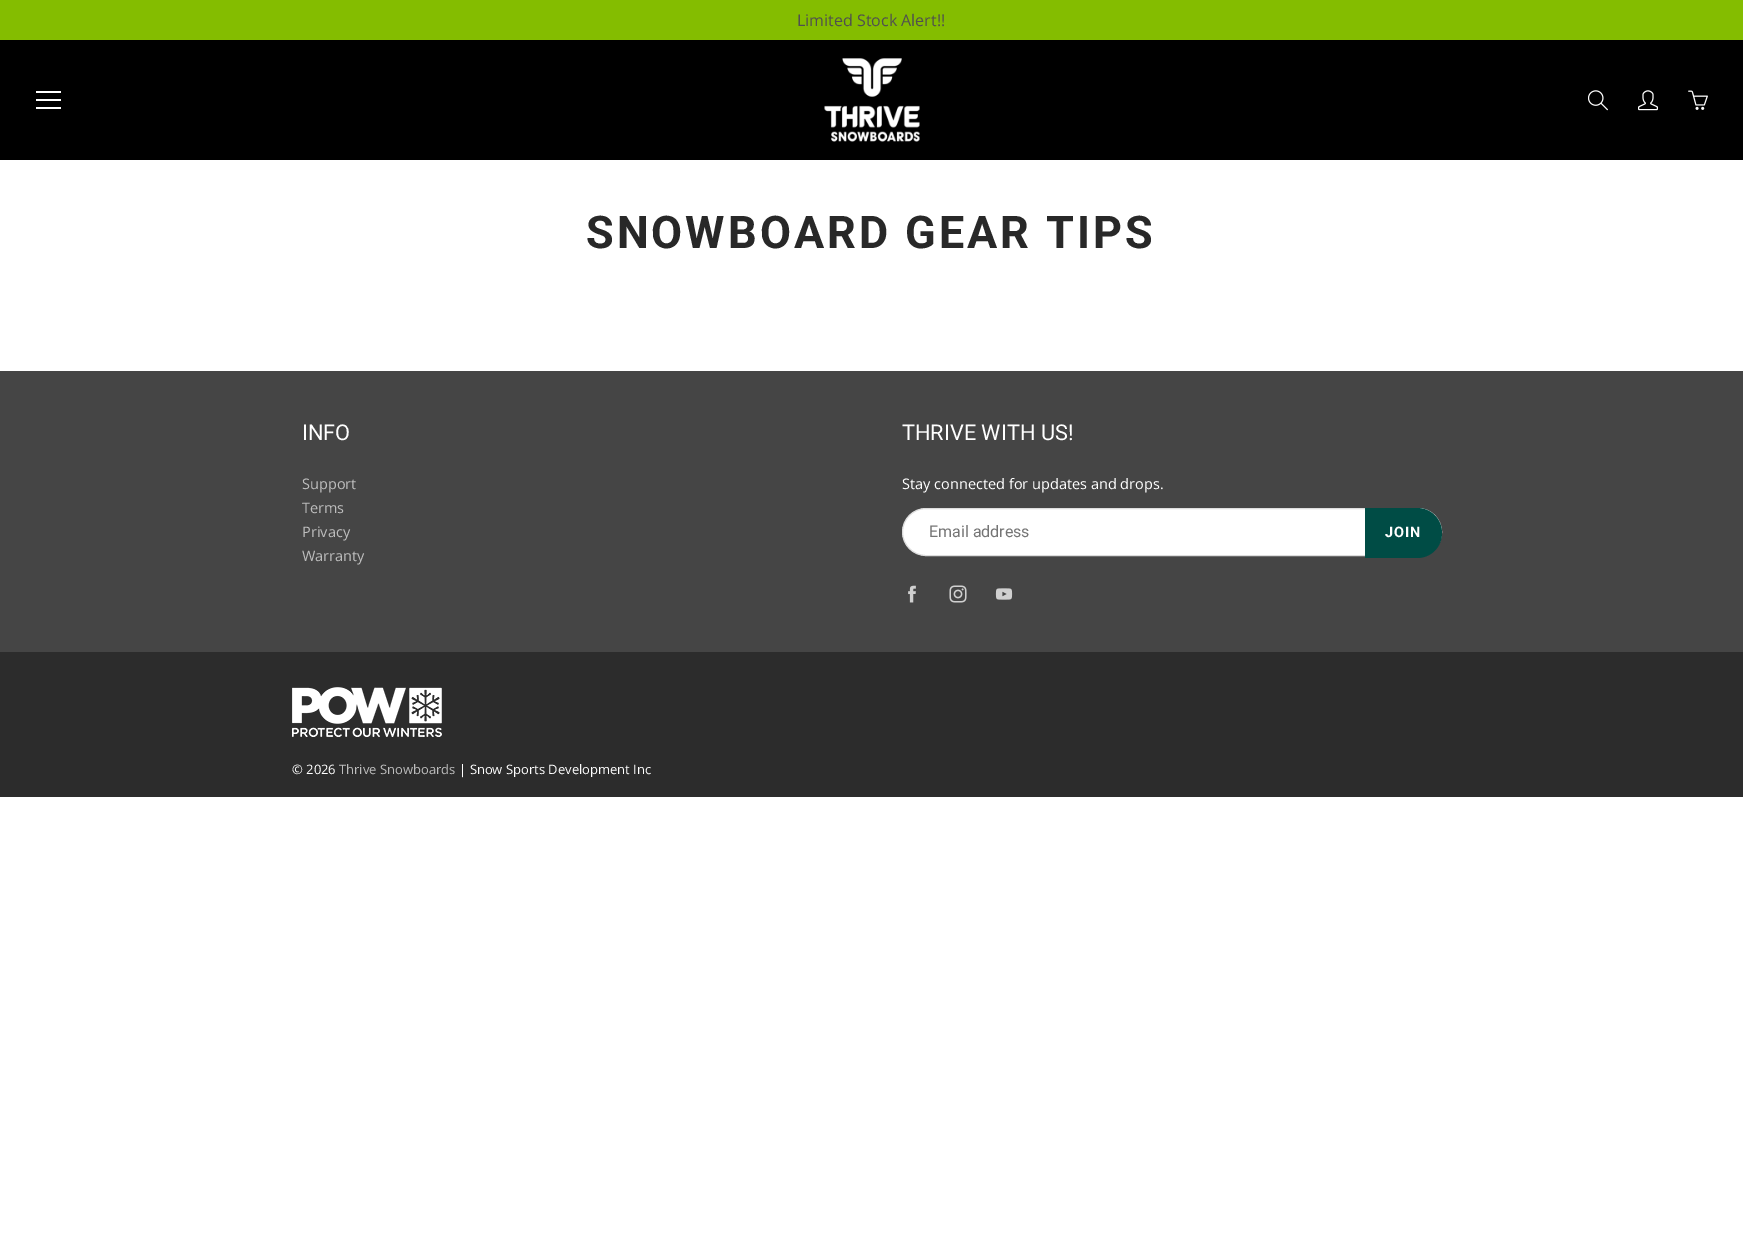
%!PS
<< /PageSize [1743 1235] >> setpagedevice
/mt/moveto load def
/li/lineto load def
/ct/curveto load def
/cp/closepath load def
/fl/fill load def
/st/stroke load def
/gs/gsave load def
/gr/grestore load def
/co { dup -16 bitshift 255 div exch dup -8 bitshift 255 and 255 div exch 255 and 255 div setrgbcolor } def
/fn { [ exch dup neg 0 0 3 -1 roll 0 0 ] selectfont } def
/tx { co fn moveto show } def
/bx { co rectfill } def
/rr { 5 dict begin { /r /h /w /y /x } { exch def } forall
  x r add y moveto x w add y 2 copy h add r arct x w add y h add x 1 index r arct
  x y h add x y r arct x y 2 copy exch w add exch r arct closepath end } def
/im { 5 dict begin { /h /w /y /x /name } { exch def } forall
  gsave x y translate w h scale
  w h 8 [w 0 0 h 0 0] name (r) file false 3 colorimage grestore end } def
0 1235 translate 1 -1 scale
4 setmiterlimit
0 0 1743 1235 16#FFFFFF bx
0 0 1743 40 16#84BD00 bx
0 40 1743 120 16#000000 bx
(media/1.raw) 824 58 96 84 im
36 99 25 2 16#FFFFFF bx
36 91 25 2 16#FFFFFF bx
36 107 25 2 16#FFFFFF bx
(media/2.raw) 1588 90 20 21 im
(media/3.raw) 1638 90 20 21 im
(media/4.raw) 1688 90 20 20 im
0 371 1743 281 16#454545 bx
16#FFFFFF co
902.5 508.5 539 47 23.5 rr gs fl gr
16#DDDDDD co
st
16#004C45 co
1365 508 mt 1417 508 li 1431 508 1442 519 1442 533 ct 1442 547 1431 558 1417 558 ct 1365 558 li cp fl
(media/5.raw) 908 585 8 18 im
(media/6.raw) 949 585 18 18 im
(media/7.raw) 995 588 18 12 im
0 652 1743 145 16#2C2C2C bx
(media/8.raw) 292 687 150 50 im
(Limited Stock Alert!!) 797 26 /OpenSans-Regular 16 16#505050 tx
/Roboto-Bold 45 fn
16#282828 co
586 248 mt 3 0 (SNOWBOARD GEAR TIPS) ashow
(INFO) 302 440 /Roboto-Regular 21.75 16#FFFFFF tx
(Support) 302 489 /OpenSans-Regular 14.5 16#BDBDBD tx
(Terms) 302 513 /OpenSans-Regular 14.5 16#BDBDBD tx
(Privacy) 302 537 /OpenSans-Regular 14.5 16#BDBDBD tx
(Warranty) 302 561 /OpenSans-Regular 14.5 16#BDBDBD tx
(THRIVE WITH US!) 902 440 /Roboto-Regular 21.75 16#FFFFFF tx
(Stay connected for updates and drops.) 902 489 /OpenSans-Regular 14.5 16#FFFFFF tx
(Email address) 929 537 /Roboto-Regular 16 16#757575 tx
/Roboto-Bold 14.5 fn
16#FFFFFF co
1385 537 mt 1 0 (JOIN) ashow
(© 2026) 292 774 /OpenSans-Regular 13 16#FFFFFF tx
(Thrive Snowboards) 339 774 /OpenSans-Regular 13 16#BDBDBD tx
(| Snow Sports Development Inc) 459 774 /OpenSans-Regular 13 16#FFFFFF tx
showpage
